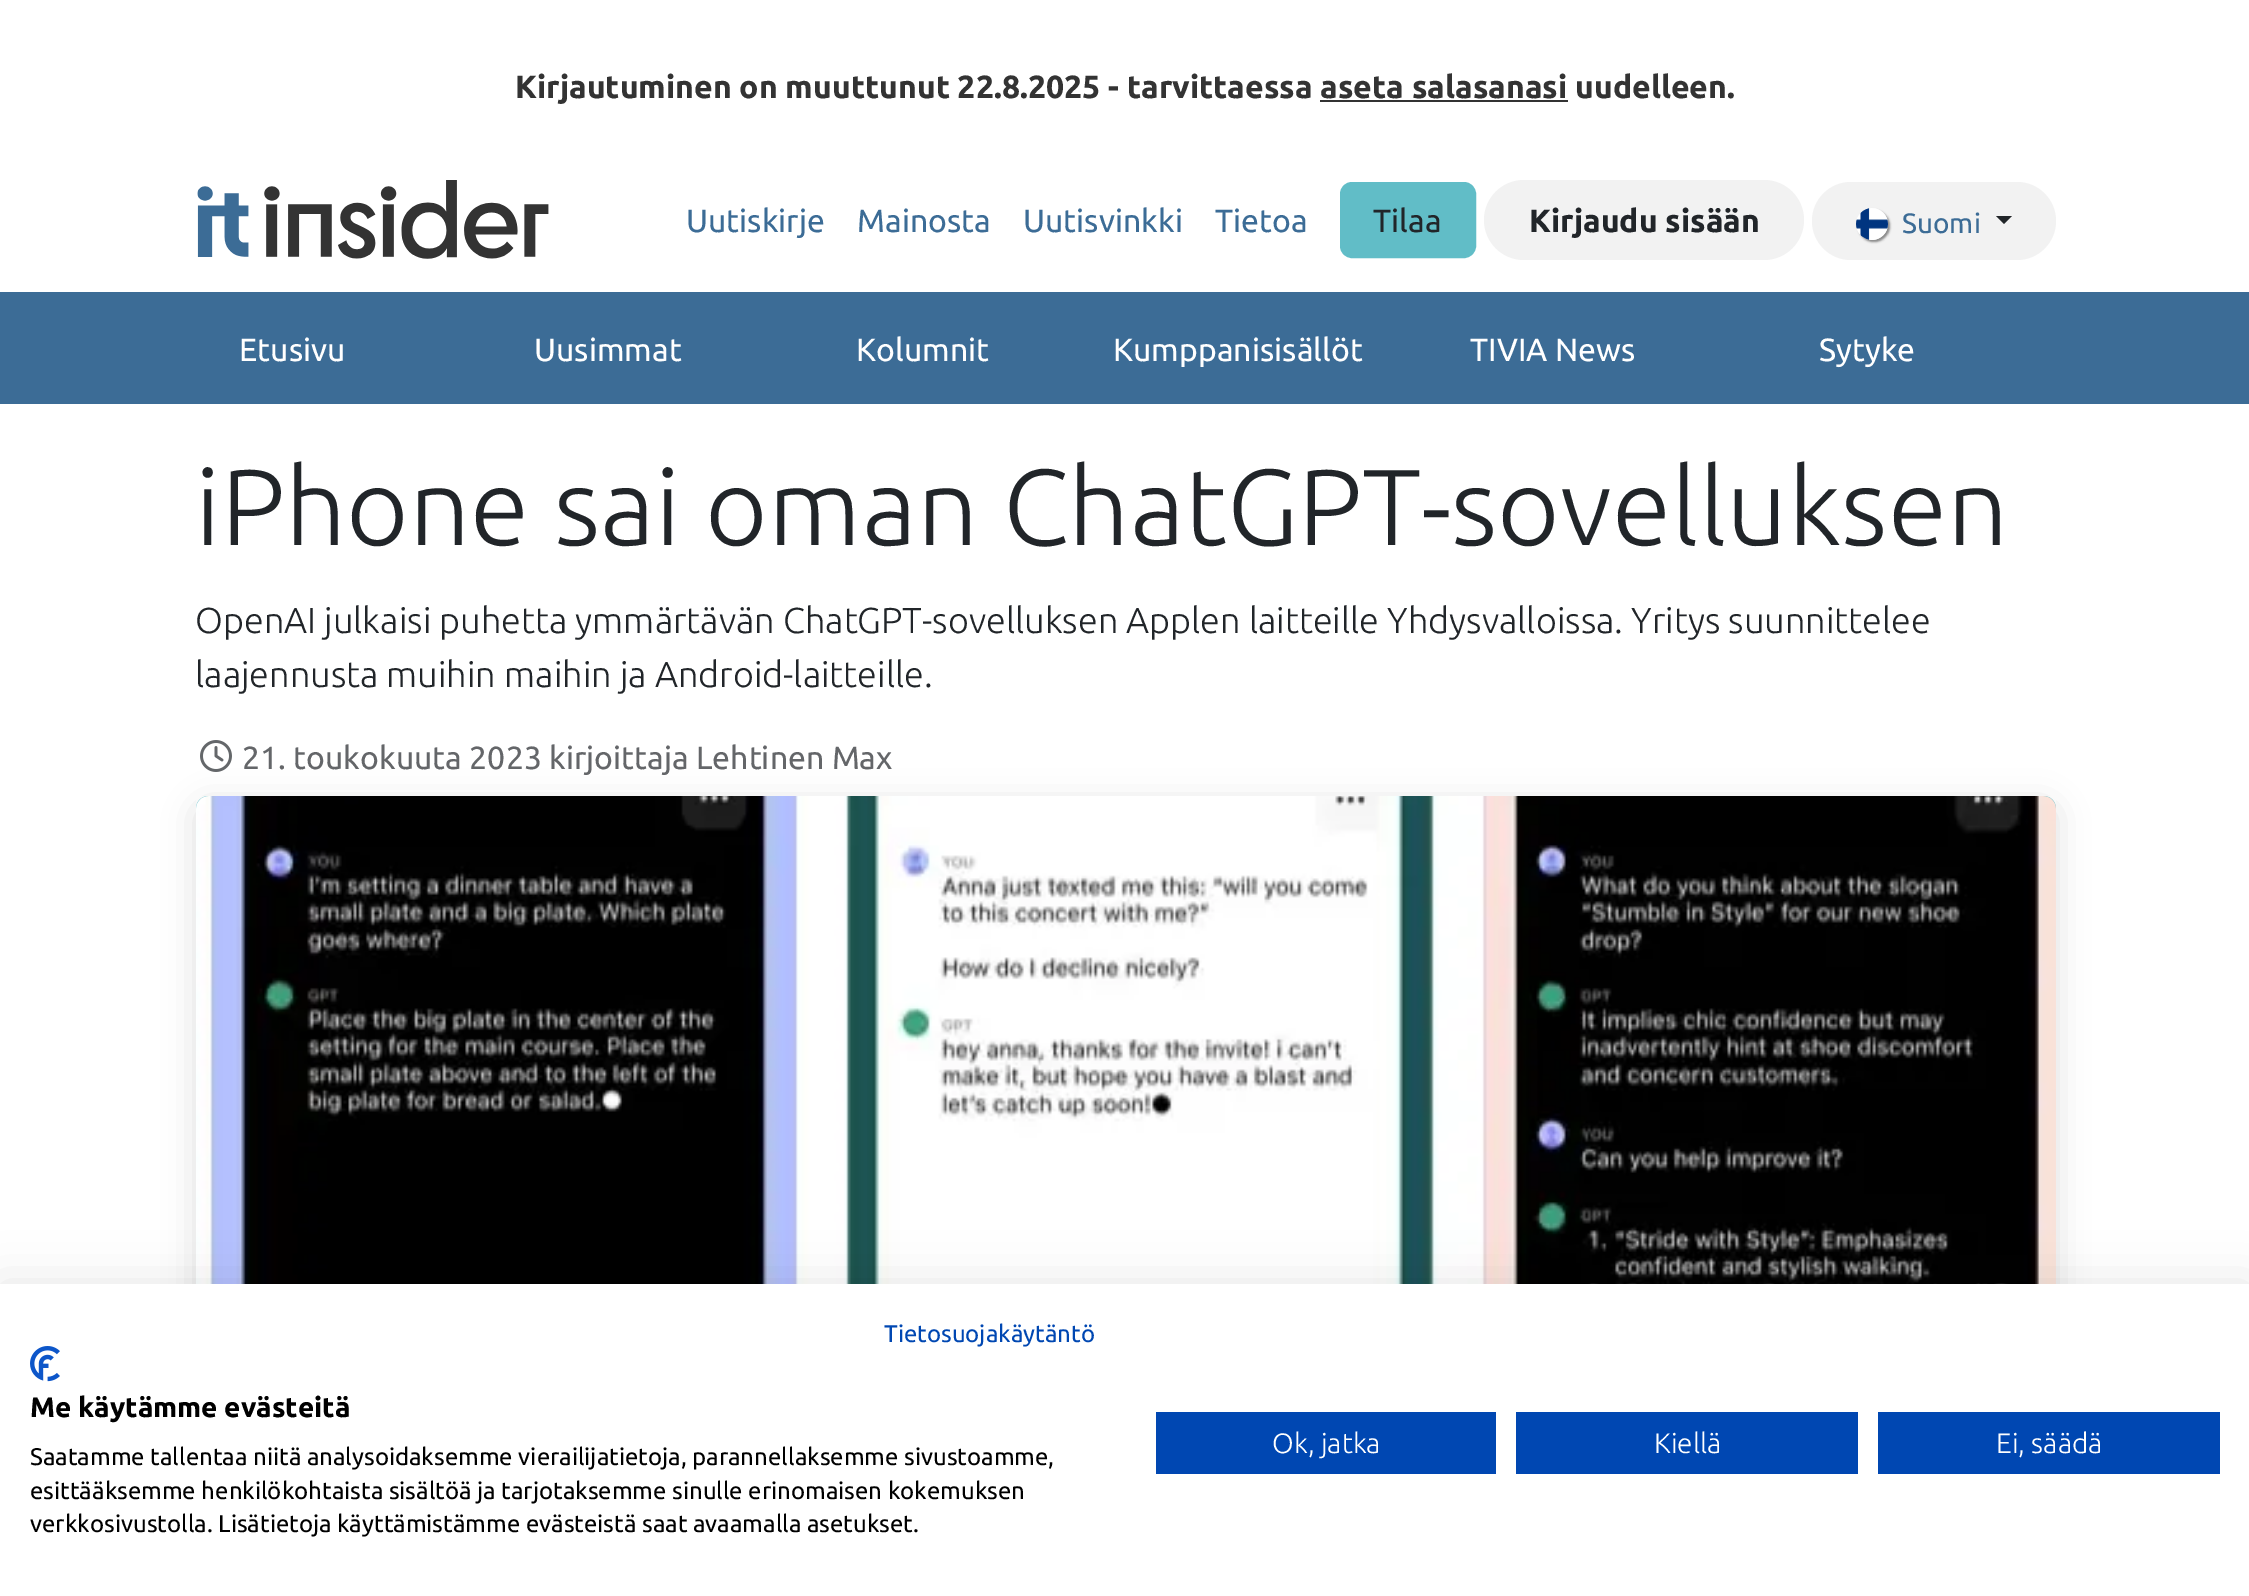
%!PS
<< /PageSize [2249 1596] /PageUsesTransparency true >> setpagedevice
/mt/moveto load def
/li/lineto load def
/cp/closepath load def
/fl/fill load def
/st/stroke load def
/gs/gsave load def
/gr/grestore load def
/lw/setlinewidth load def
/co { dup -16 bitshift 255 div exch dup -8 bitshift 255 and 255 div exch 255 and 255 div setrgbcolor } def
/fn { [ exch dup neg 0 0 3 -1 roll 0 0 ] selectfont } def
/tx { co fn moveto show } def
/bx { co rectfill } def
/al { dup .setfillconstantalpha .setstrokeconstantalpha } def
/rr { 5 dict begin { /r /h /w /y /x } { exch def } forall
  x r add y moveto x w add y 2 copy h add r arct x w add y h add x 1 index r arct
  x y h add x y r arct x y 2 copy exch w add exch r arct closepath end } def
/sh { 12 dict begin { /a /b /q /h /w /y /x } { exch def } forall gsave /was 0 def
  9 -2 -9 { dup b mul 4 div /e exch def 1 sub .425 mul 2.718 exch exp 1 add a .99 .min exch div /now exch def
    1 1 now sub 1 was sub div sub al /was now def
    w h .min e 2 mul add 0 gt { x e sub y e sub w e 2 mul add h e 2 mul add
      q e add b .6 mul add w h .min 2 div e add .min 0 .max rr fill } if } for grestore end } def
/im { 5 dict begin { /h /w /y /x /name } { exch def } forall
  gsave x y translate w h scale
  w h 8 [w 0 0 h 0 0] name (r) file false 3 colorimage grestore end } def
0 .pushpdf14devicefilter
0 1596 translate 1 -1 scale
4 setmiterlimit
0 0 2249 1596 16#FFFFFF bx
1320 100 248 2 16#333333 bx
(media/1.raw) 197 180 352 79 im
16#61BDC7 co
1341 183 134 74 11 rr gs fl gr
2 lw
st
16#F2F2F2 co
1484 180 320 80 40 rr fl
1812 182 244 78 39 rr fl
16#000000 co
1858 210 32 32 16 1 .43 sh
(media/2.raw) 1856 208 32 32 im
16#212529 co
1996 216 mt 2012 216 li 2004 224 li cp fl
0 292 2249 112 16#3C6C96 bx
(media/3.raw) 200 740 32 32 im
16#000000 co
196 804 1860 640 12 16 .12 sh
16#61BDC7 co
196 796 1860 640 12 rr fl
(media/4.raw) 196 796 1860 488 im
16#000000 co
0 1284 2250 312 0 24 .1 sh
0 1284 2249 312 16#FFFFFF bx
(media/5.raw) 30 1346 30 36 im
1156 1412 340 62 16#0047B2 bx
1516 1412 342 62 16#0047B2 bx
1878 1412 342 62 16#0047B2 bx
(Kirjautuminen on muuttunut 22.8.2025 - tarvittaessa aseta salasanasi uudelleen.) 515 98 /Ubuntu-Bold 32 16#333333 tx
(Uutiskirje) 686 232 /Ubuntu-Regular 32 16#3C6C96 tx
(Mainosta) 857 232 /Ubuntu-Regular 32 16#3C6C96 tx
(Uutisvinkki) 1023 232 /Ubuntu-Regular 32 16#3C6C96 tx
(Tietoa) 1215 232 /Ubuntu-Regular 32 16#3C6C96 tx
(Tilaa) 1373 232 /Ubuntu-Regular 32 16#212529 tx
(Kirjaudu sisään) 1529 232 /Ubuntu-Bold 32 16#212529 tx
(Suomi) 1902 233 /Ubuntu-Regular 28 16#3C6C96 tx
(Etusivu) 239 361 /Ubuntu-Regular 32 16#FFFFFF tx
(Uusimmat) 534 361 /Ubuntu-Regular 32 16#FFFFFF tx
(Kolumnit) 856 361 /Ubuntu-Regular 32 16#FFFFFF tx
(Kumppanisisällöt) 1113 361 /Ubuntu-Regular 32 16#FFFFFF tx
(TIVIA News) 1470 361 /Ubuntu-Regular 32 16#FFFFFF tx
(Sytyke) 1819 361 /Ubuntu-Regular 32 16#FFFFFF tx
(iPhone sai oman ChatGPT-sovelluksen) 195 545 /Ubuntu-Light 108 16#212529 tx
(OpenAI julkaisi puhetta ymmärtävän ChatGPT-sovelluksen Applen laitteille Yhdysvalloissa. Yritys suunnittelee) 195 633 /Ubuntu-Light 36 16#212529 tx
(laajennusta muihin maihin ja Android-laitteille.) 195 687 /Ubuntu-Light 36 16#212529 tx
(21. toukokuuta 2023 kirjoittaja Lehtinen Max) 242 769 /Ubuntu-Regular 32 16#646669 tx
(Tietosuojakäytäntö) 884 1342 /Ubuntu-Regular 24 16#0047B2 tx
(Me käytämme evästeitä) 30 1417 /Ubuntu-Bold 28 16#000000 tx
(Saatamme tallentaa niitä analysoidaksemme vierailijatietoja, parannellaksemme sivustoamme,) 30 1465 /Ubuntu-Regular 24 16#000000 tx
(esittääksemme henkilökohtaista sisältöä ja tarjotaksemme sinulle erinomaisen kokemuksen) 30 1499 /Ubuntu-Regular 24 16#000000 tx
(verkkosivustolla. Lisätietoja käyttämistämme evästeistä saat avaamalla asetukset.) 30 1532 /Ubuntu-Regular 24 16#000000 tx
(Ok, jatka) 1272 1453 /Ubuntu-Light 28 16#FFFFFF tx
(Kiellä) 1654 1453 /Ubuntu-Light 28 16#FFFFFF tx
(Ei, säädä) 1996 1453 /Ubuntu-Light 28 16#FFFFFF tx
.poppdf14devicefilter showpage
